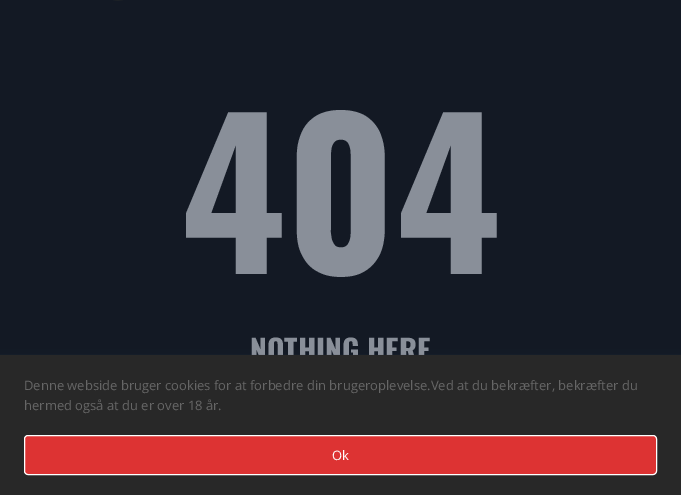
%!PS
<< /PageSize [681 495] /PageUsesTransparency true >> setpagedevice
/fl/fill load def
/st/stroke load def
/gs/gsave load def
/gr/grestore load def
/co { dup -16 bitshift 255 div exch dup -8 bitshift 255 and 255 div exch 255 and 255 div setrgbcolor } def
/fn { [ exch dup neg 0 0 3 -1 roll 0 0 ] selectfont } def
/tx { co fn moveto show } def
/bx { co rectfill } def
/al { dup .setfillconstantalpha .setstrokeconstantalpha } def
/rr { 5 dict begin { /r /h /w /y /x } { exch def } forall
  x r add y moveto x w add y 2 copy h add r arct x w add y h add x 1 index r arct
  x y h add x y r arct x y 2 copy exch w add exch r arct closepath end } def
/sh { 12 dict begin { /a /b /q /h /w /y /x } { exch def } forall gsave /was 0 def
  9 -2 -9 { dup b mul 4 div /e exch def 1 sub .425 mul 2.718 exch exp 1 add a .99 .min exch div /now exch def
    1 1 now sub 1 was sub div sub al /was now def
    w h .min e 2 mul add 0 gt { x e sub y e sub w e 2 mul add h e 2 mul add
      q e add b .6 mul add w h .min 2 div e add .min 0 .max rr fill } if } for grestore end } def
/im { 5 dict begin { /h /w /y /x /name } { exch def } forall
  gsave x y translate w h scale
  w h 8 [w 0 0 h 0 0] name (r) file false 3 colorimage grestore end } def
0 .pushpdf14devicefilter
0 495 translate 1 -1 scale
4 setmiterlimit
0 0 681 495 16#131924 bx
(media/1.raw) 113 0 10 1 im
16#242F42 co
-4 361 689 128 0 10 .31 sh
(404) 181 274 /Oswald-Bold 200 16#898F99 tx
(NOTHING HERE) 250 362 /Oswald-Bold 30 16#898F99 tx
0.08 al
16#242F42 co
-.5 354.5 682 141 rectstroke
1 al
0 355 681 140 16#282828 bx
(Denne webside bruger cookies for at forbedre din brugeroplevelse.Ved at du bekræfter, bekræfter du) 24 390 /OpenSans-Regular 13 16#666666 tx
(hermed også at du er over 18 år.) 24 410 /OpenSans-Regular 13 16#666666 tx
16#DD3333 co
24.5 435.5 632 39 3.5 rr gs fl gr
16#FFFFFF co
st
(Ok) 332 460 /OpenSans-Regular 13 16#FFFFFF tx
.poppdf14devicefilter showpage
